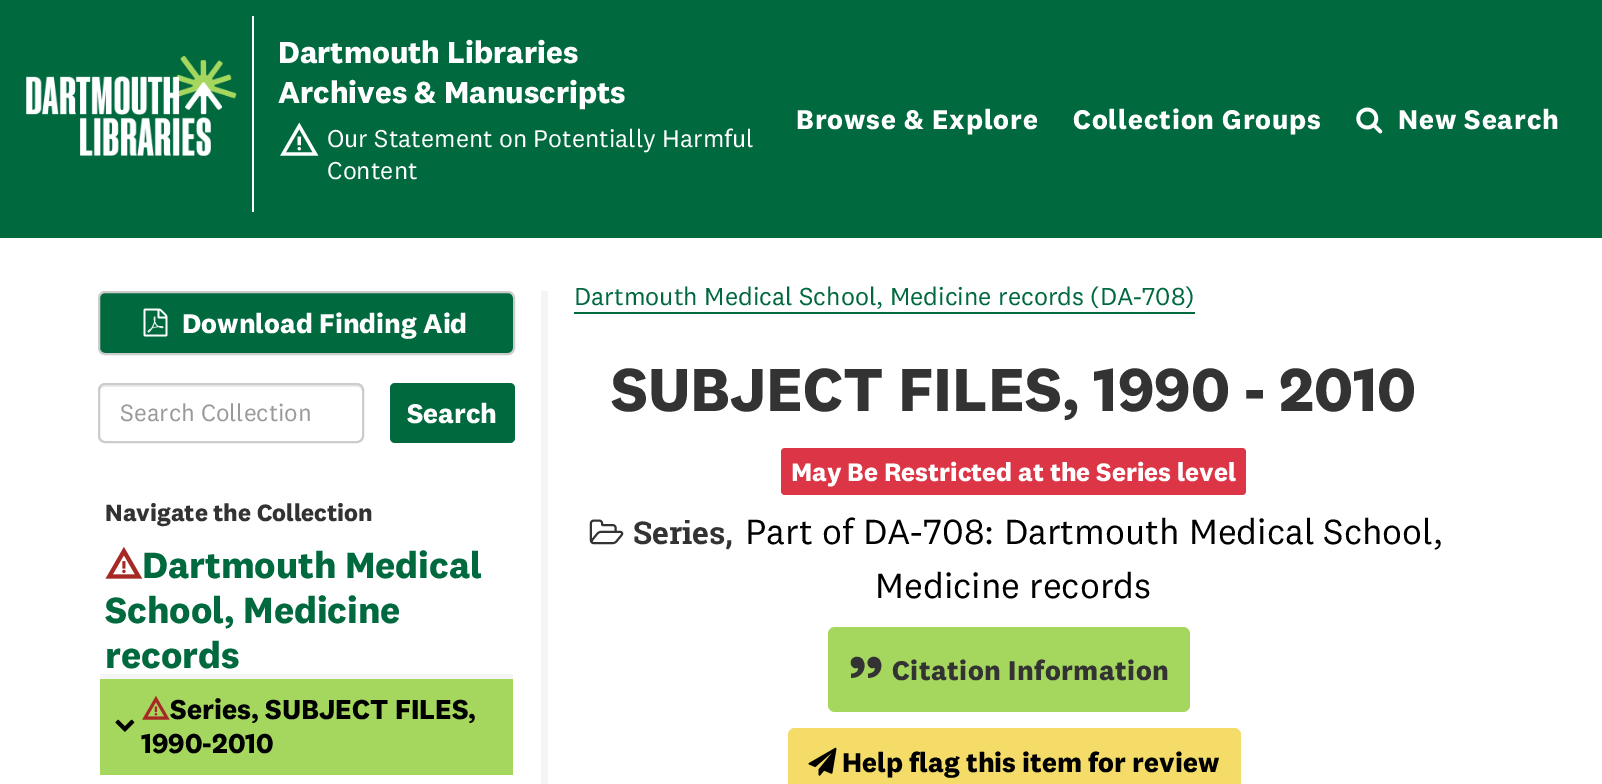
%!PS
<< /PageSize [1602 784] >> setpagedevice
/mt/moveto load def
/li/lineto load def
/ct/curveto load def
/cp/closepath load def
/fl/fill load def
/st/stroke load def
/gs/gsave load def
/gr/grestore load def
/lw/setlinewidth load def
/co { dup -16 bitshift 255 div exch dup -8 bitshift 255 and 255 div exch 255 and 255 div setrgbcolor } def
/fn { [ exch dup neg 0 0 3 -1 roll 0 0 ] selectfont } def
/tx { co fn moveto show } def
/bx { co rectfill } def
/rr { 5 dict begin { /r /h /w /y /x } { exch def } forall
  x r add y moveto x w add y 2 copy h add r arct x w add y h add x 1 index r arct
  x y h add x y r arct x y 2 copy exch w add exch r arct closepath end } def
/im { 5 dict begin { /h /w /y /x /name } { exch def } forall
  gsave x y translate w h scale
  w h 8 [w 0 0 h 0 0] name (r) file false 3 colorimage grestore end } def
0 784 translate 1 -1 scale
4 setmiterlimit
0 0 1602 784 16#FFFFFF bx
0 0 1602 238 16#00693E bx
(media/1.raw) 26 56 211 100 im
252 16 2 196 16#FFFFFF bx
(media/2.raw) 280 122 39 34 im
(media/3.raw) 1356 107 27 27 im
16#00693E co
99 292 415 62 6 rr gs fl gr
16#CCCCCC co
2 lw
st
(media/4.raw) 143 308 25 29 im
16#ECECEC co
105 387 mt 357 387 li 360 387 362 389 362 392 ct 362 390 li 362 387 360 385 357 385 ct 105 385 li 102 385 100 387 100 390 ct 100 392 li 100 389 102 387 105 387 ct cp fl
16#CCCCCC co
99 384 264 58 6 rr st
16#00693E co
390 383 125 60 5 rr fl
100 674 413 5 16#F5F5F5 bx
(media/5.raw) 105 546 38 33 im
100 679 413 96 16#A5D75F bx
(media/6.raw) 115 719 20 13 im
(media/7.raw) 142 695 28 25 im
541 291 7 493 16#F5F5F5 bx
574 312 621 2 16#00693E bx
16#DC3545 co
781 448 465 47 4 rr fl
(media/8.raw) 589 519 35 26 im
16#A5D75F co
828 627 362 85 7 rr fl
16#F5DC69 co
788 728 453 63 7 rr fl
(media/9.raw) 808 747 29 29 im
(Dartmouth Libraries) 278 63 /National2-Bold 31.5 16#FFFFFF tx
(Archives & Manuscripts) 278 103 /National2-Bold 31.5 16#FFFFFF tx
(Our Statement on Potentially Harmful) 327 147 /National2-Regular 25.25 16#FFFFFF tx
(Content) 327 179 /National2-Regular 25.25 16#FFFFFF tx
/National2-Bold 28 fn
796 129 mt .9 0 (Browse & Explore) ashow
1073 129 mt .9 0 (Collection Groups) ashow
1398 129 mt .9 0 (New Search) ashow
(Download Finding Aid) 182 333 /National2-Bold 28 16#FFFFFF tx
(Search Collection) 120 421 /National2-Regular 24.5 16#999999 tx
(Search) 407 423 /National2-Bold 28 16#FFFFFF tx
(Navigate the Collection) 105 521 /National2-Bold 24.5 16#333333 tx
(Dartmouth Medical) 142 578 /National2-Bold 37.75 16#00693E tx
(School, Medicine) 105 623 /National2-Bold 37.75 16#00693E tx
(records) 105 668 /National2-Bold 37.75 16#00693E tx
(Series, SUBJECT FILES,) 170 719 /National2-Bold 28.4 16#000000 tx
(1990-2010) 141 753 /National2-Bold 28.4 16#000000 tx
(Dartmouth Medical School, Medicine records \(DA-708\)) 574 305 /National2-Regular 25.5 16#00693E tx
(SUBJECT FILES, 1990 - 2010) 611 411 /National2-Bold 63 16#333333 tx
(May Be Restricted at the Series level) 791 481 /National2-Bold 26.25 16#FFFFFF tx
(Series,) 633 544 /RobotoSlab-Bold 31.5 16#333333 tx
(Part of DA-708: Dartmouth Medical School,) 745 544 /National2-Regular 36.25 16#000000 tx
(Medicine records) 875 598 /National2-Regular 36.25 16#000000 tx
/National2-Bold 70 fn
16#333333 co
848 708 mt .5 0 (”) ashow
/National2-Bold 28 fn
892 680 mt .5 0 (Citation Information) ashow
(Help flag this item for review) 842 772 /National2-Bold 28 16#000000 tx
showpage
